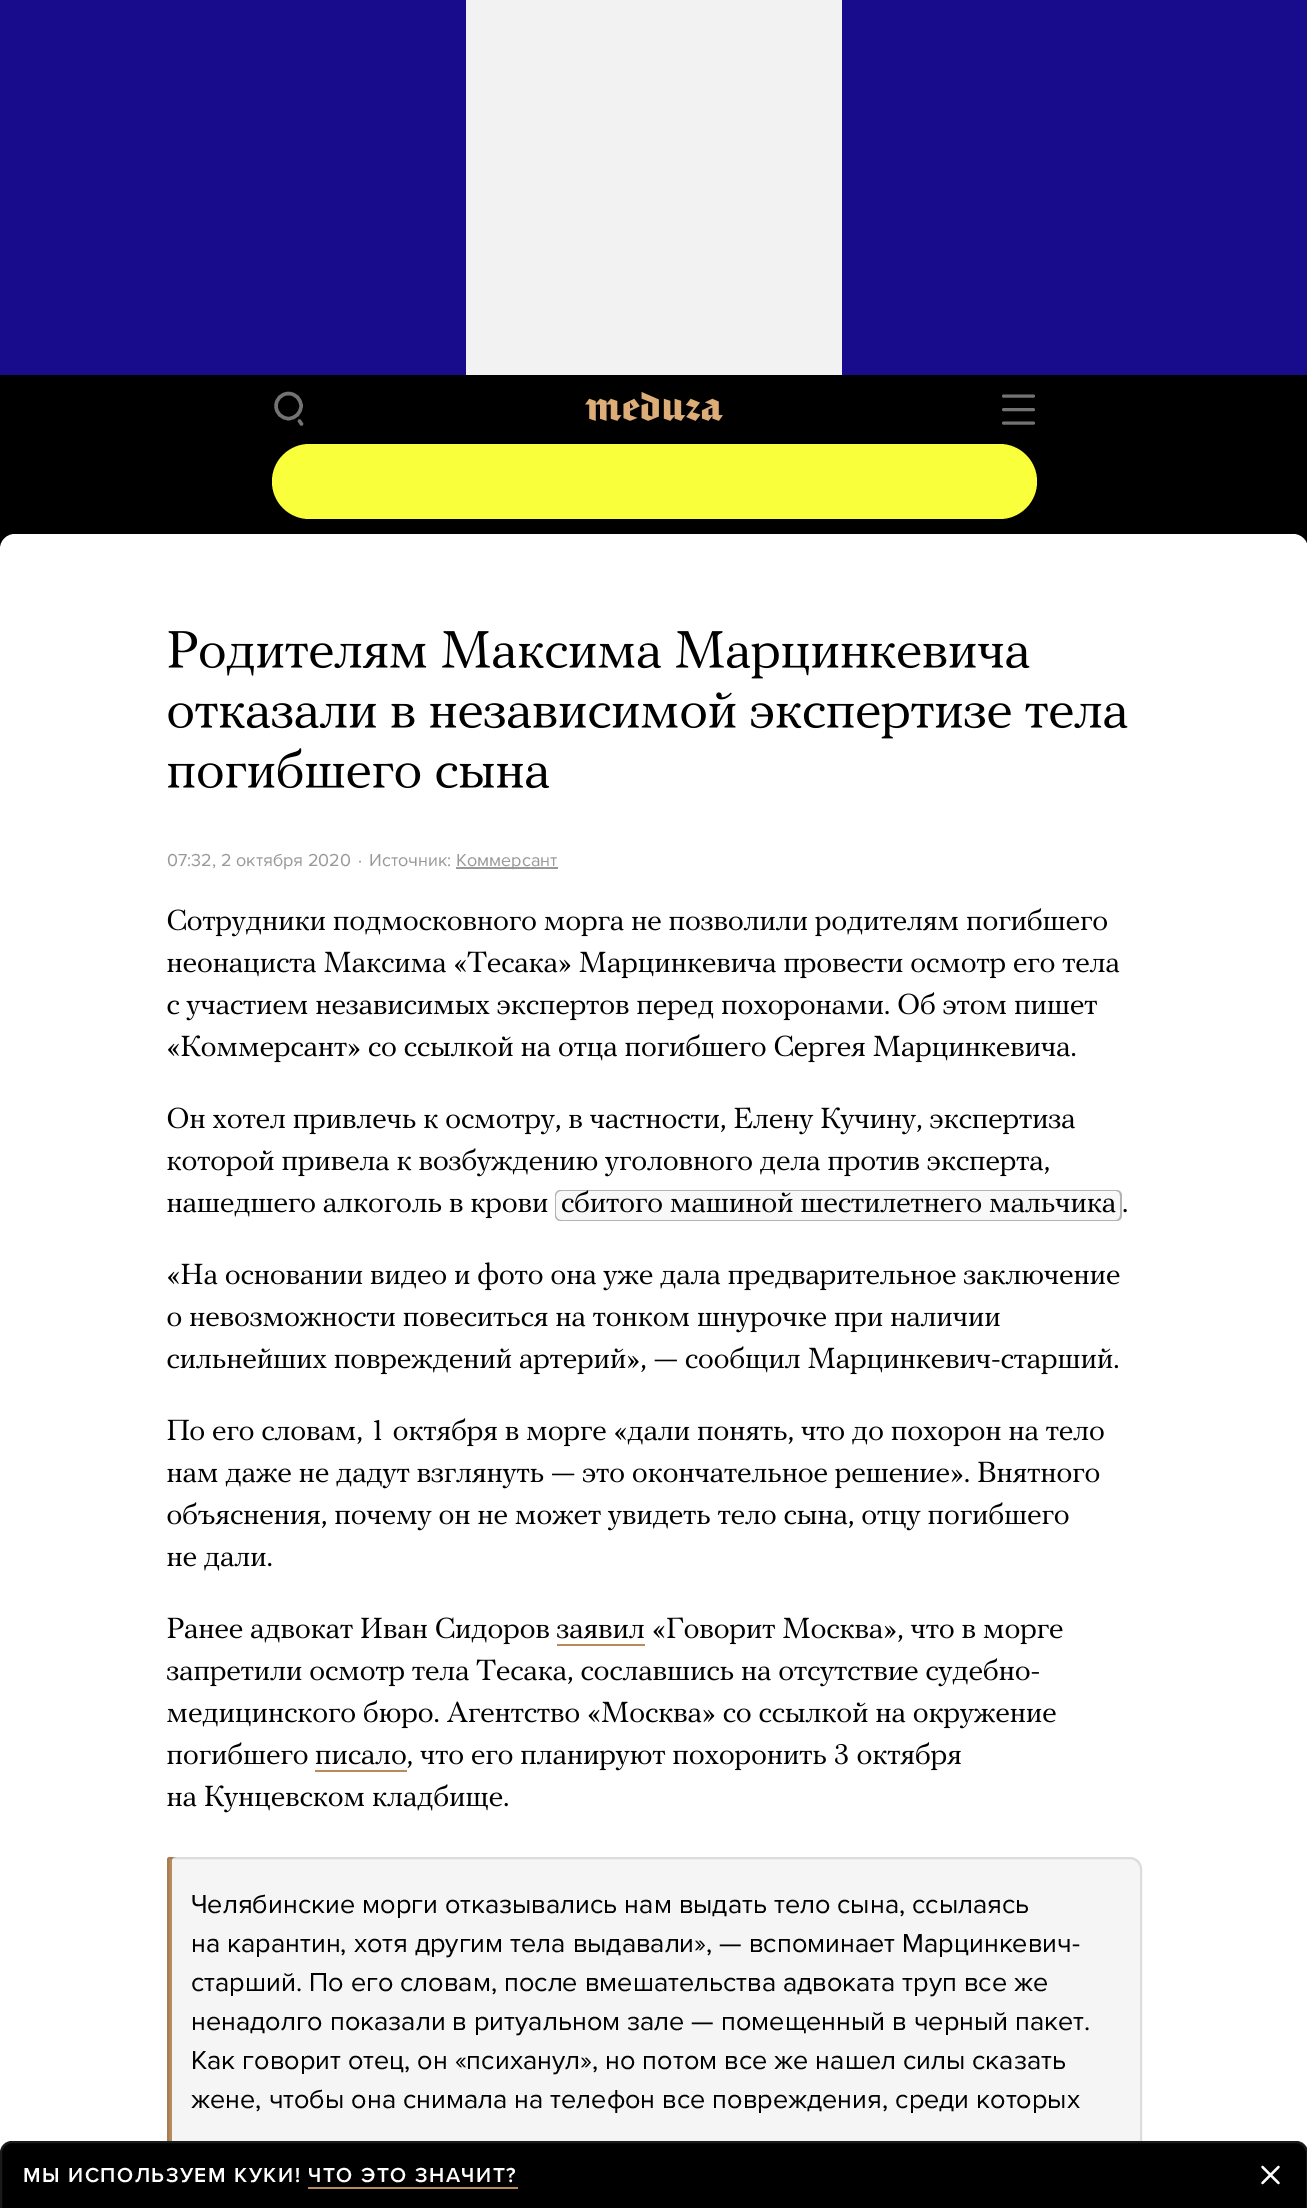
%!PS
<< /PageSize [1307 2208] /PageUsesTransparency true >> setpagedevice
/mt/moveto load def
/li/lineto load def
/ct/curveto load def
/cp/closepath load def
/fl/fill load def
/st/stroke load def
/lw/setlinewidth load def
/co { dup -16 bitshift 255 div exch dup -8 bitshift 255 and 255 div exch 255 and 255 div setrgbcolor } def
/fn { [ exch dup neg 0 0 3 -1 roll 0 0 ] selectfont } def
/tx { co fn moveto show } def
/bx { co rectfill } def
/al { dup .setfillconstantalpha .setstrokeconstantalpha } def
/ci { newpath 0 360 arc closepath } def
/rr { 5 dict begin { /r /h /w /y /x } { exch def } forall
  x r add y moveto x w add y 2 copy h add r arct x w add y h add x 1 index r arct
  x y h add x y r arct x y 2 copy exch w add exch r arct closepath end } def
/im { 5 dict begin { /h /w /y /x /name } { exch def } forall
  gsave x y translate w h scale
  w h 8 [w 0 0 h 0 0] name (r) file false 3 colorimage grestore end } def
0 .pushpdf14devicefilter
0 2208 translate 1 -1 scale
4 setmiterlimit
0 0 1307 2208 16#000000 bx
0 0 1307 375 16#190C8C bx
466 0 376 375 16#F2F2F2 bx
16#737373 co
3.4 lw
288.5 406 12.5 ci st
1 setlinecap
1 setlinejoin
301.5 424 mt 299.5 421 li st
(media/1.raw) 585 392 138 29 im
3 lw
1003.5 423 mt 1033.5 423 li 1003.5 409.5 mt 1033.5 409.5 li 1003.5 396 mt 1033.5 396 li st
16#F9FF3A co
272 444 765 75 37.5 rr fl
16#FFFFFF co
0 534 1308 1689 15 rr fl
(media/2.raw) 168 631 862 48 im
(media/3.raw) 168 692 960 47 im
(media/4.raw) 167 748 383 41 im
456 867 102 2 16#999999 bx
(media/5.raw) 167 908 940 29 im
(media/6.raw) 167 951 953 28 im
(media/7.raw) 167 992 931 29 im
(media/8.raw) 168 1034 908 29 im
(media/9.raw) 167 1107 908 28 im
(media/10.raw) 167 1148 882 29 im
16#F8F8F8 co
555 1190 567 31 6 rr fl
16#B3B3B3 co
555 1214 mt 555 1215 li 555 1218 558 1221 561 1221 ct 1116 1221 li 1119 1221 1122 1218 1122 1215 ct 1122 1214 li 1122 1217 1119 1220 1116 1220 ct 561 1220 li 558 1220 555 1217 555 1214 ct cp fl
1114 1221 mt 1121 1221 1122 1218.5 1122 1212 ct 1122 1199 li 1122 1192.5 1121 1190 1114 1190 ct 1118 1190 1120 1192 1120 1196 ct 1120 1215 li 1120 1218 1118 1221 1114 1221 ct cp fl
561 1191 mt 1116 1191 li 1119 1191 1122 1194 1122 1197 ct 1122 1196 li 1122 1193 1119 1190 1116 1190 ct 561 1190 li 558 1190 555 1193 555 1196 ct 555 1197 li 555 1194 558 1191 561 1191 ct cp fl
(media/11.raw) 167 1198 381 21 im
561 1190 mt 557.5 1190 555 1192.5 555 1196 ct 555 1215 li 555 1218.5 557.5 1221 561 1221 ct 562 1221 li 559 1221 556 1218 556 1215 ct 556 1196 li 556 1192 559 1190 562 1190 ct cp fl
(media/12.raw) 562 1190 554 23 im
(media/13.raw) 1123 1208 4 5 im
(media/14.raw) 168 1262 952 29 im
(media/15.raw) 167 1312 833 21 im
(media/16.raw) 167 1346 951 29 im
(media/17.raw) 167 1418 937 29 im
(media/18.raw) 167 1461 933 28 im
(media/19.raw) 167 1502 902 29 im
(media/20.raw) 167 1552 105 19 im
(media/21.raw) 167 1617 382 28 im
(media/22.raw) 557 1624 87 15 im
(media/23.raw) 653 1617 410 28 im
557 1644 88 2 16#B88B59 bx
(media/24.raw) 167 1658 872 29 im
(media/25.raw) 167 1700 889 29 im
(media/26.raw) 167 1742 141 23 im
(media/27.raw) 315 1750 91 15 im
(media/28.raw) 407 1742 554 29 im
315 1770 92 2 16#B88B59 bx
(media/29.raw) 167 1784 341 29 im
16#F5F5F5 co
170 1857 mt 1130 1857 li 1136.5 1857 1142 1862.5 1142 1869 ct 1142 2208 li 1142 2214.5 1136.5 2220 1130 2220 ct 170 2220 li 168.5 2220 167 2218.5 167 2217 ct 167 1860 li 167 1858.5 168.5 1857 170 1857 ct cp fl
16#B78B5C co
170 1857 mt 168 1857 167 1858 167 1860 ct 167 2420 li 167 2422 168 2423 170 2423 ct 1130 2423 li 1135 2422 li 176 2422 li 174 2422 172 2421 172 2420 ct 172 1860 li 172 1858 174 1857 176 1857 ct cp fl
0.1 al
16#000000 co
2 lw
0 setlinecap
0 setlinejoin
170 1858 mt 1130 1858 li 1136 1858 1141 1863 1141 1869 ct 1141 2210 li 1141 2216 1136 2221 1130 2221 ct 170 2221 li 169 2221 168 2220 168 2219 ct 168 1860 li 168 1859 169 1858 170 1858 ct cp st
1 al
12 2141 mt 1296 2141 li 1302.5 2141 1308 2146.5 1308 2153 ct 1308 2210 li 0 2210 li 0 2153 li 0 2146.5 5.5 2141 12 2141 ct cp fl
0.1 al
16#FFFFFF co
12 2142 mt 1296 2142 li 1302 2142 1307 2147 1307 2153 ct 1307 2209 li 1 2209 li 1 2153 li 1 2147 6 2142 12 2142 ct cp st
1 al
308 2187 210 2 16#B88B58 bx
16#FFFFFF co
2.2 lw
1 setlinecap
1 setlinejoin
1262.5 2167 mt 1278.5 2183 li 1278.5 2167 mt 1262.5 2183 li st
(07:32, 2 октября 2020) 167 866 /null-Regular 18 16#999999 tx
(·) 358 866 /null-Regular 18 16#999999 tx
(Источник:) 369 866 /null-Regular 18 16#999999 tx
(Коммерсант) 456 866 /null-Regular 18 16#999999 tx
(Челябинские морги отказывались нам выдать тело сына, ссылаясь) 191 1913 /null-Regular 27 16#000000 tx
(на карантин, хотя другим тела выдавали», — вспоминает Марцинкевич-) 191 1952 /null-Regular 27 16#000000 tx
(старший. По его словам, после вмешательства адвоката труп все же) 191 1991 /null-Regular 27 16#000000 tx
(ненадолго показали в ритуальном зале — помещенный в черный пакет.) 191 2030 /null-Regular 27 16#000000 tx
(Как говорит отец, он «психанул», но потом все же нашел силы сказать) 191 2069 /null-Regular 27 16#000000 tx
(жене, чтобы она снимала на телефон все повреждения, среди которых) 191 2108 /null-Regular 27 16#000000 tx
/null-SemiBold 21 fn
16#FFFFFF co
23 2182 mt 1.5 0 (МЫ ИСПОЛЬЗУЕМ КУКИ! ЧТО ЭТО ЗНАЧИТ?) ashow
.poppdf14devicefilter showpage
